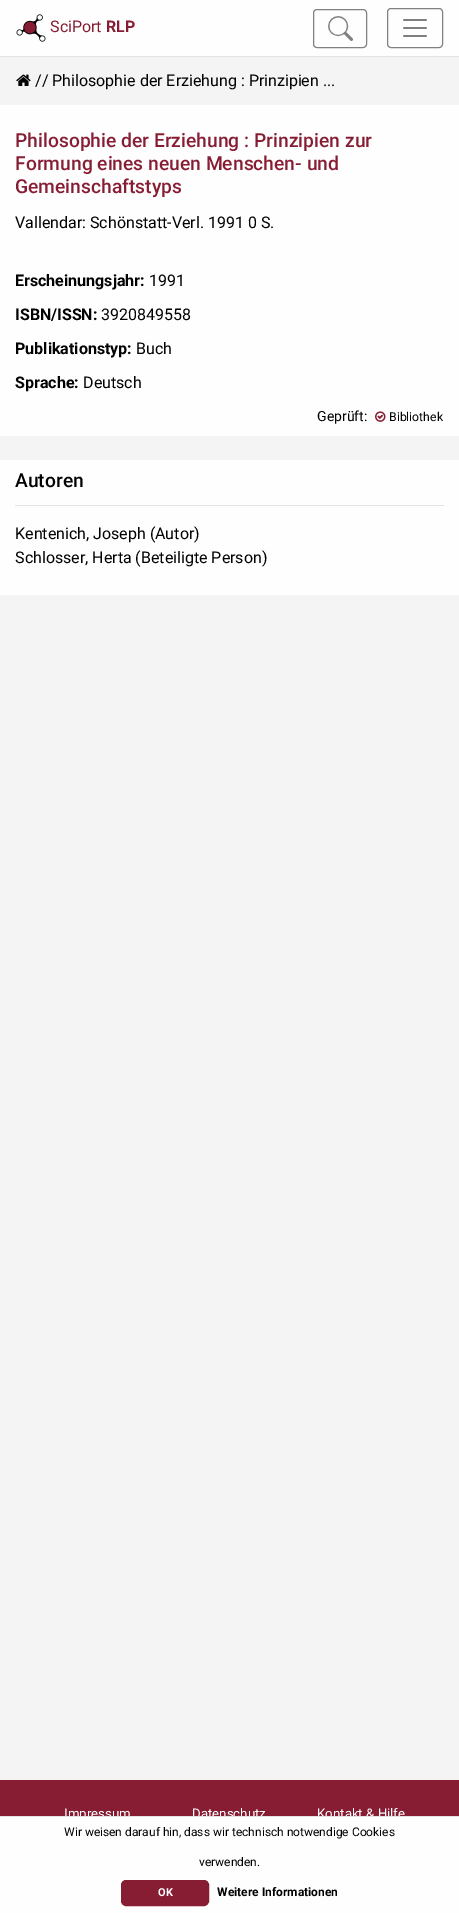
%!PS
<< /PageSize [459 1913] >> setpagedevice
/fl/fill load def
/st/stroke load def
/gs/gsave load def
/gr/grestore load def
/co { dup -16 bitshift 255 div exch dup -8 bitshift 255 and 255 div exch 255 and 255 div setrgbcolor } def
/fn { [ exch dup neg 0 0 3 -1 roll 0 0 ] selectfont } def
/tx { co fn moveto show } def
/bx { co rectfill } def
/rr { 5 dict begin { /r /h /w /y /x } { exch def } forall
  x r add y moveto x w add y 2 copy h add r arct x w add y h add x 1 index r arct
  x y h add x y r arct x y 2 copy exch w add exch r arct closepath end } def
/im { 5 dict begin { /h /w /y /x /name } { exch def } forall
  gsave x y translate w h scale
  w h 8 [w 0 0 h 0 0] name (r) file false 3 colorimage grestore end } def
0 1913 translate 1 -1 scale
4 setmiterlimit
0 0 459 1913 16#F4F4F4 bx
0 0 459 56 16#FEFEFE bx
0 56 459 1 16#E3E3E3 bx
(media/1.raw) 16 14 30 28 im
16#818181 co
313.5 9.5 53 38 3.5 rr st
(media/2.raw) 328 16 25 25 im
387.5 8.5 55 39 3.5 rr st
(media/3.raw) 403 19 24 18 im
(media/4.raw) 16 74 15 12 im
0 105 459 331 16#FEFEFE bx
(media/5.raw) 375 411 11 11 im
0 460 459 135 16#FEFEFE bx
15 505 429 1 16#E3E3E3 bx
0 1780 459 36 16#871D33 bx
(SciPort) 50 32 /Roboto-Regular 16 16#871D33 tx
(RLP) 106 32 /Roboto-Bold 16 16#871D33 tx
(// Philosophie der Erziehung : Prinzipien ...) 35 86 /Roboto-Regular 16 16#010101 tx
(Philosophie der Erziehung : Prinzipien zur) 15 147 /Roboto-Medium 19.25 16#871D33 tx
(Formung eines neuen Menschen- und) 15 170 /Roboto-Medium 19.25 16#871D33 tx
(Gemeinschaftstyps) 15 193 /Roboto-Medium 19.25 16#871D33 tx
(Vallendar: Schönstatt-Verl. 1991 0 S.) 15 228 /Roboto-Regular 16 16#010101 tx
(Erscheinungsjahr:) 15 286 /Roboto-Bold 16 16#010101 tx
(1991) 149 286 /Roboto-Regular 16 16#010101 tx
(ISBN/ISSN:) 15 320 /Roboto-Bold 16 16#010101 tx
(3920849558) 101 320 /Roboto-Regular 16 16#010101 tx
(Publikationstyp:) 15 354 /Roboto-Bold 16 16#010101 tx
(Buch) 136 354 /Roboto-Regular 16 16#010101 tx
(Sprache:) 15 388 /Roboto-Bold 16 16#010101 tx
(Deutsch) 83 388 /Roboto-Regular 16 16#010101 tx
(Geprüft:) 317 421 /Roboto-Regular 14 16#010101 tx
(Bibliothek) 389 421 /Roboto-Regular 12.25 16#010101 tx
(Autoren) 15 487 /Roboto-Medium 19.25 16#010101 tx
(Kentenich, Joseph \(Autor\)) 15 539 /Roboto-Regular 16 16#010101 tx
(Schlosser, Herta \(Beteiligte Person\)) 15 563 /Roboto-Regular 16 16#010101 tx
(Impressum) 64 1818 /Roboto-Regular 13.25 16#FFFFFF tx
(Datenschutz) 192 1818 /Roboto-Regular 13.25 16#FFFFFF tx
(Kontakt & Hilfe) 317 1818 /Roboto-Regular 13.25 16#FFFFFF tx
0 1817 459 96 16#FEFEFE bx
0 1816 459 1 16#E4E4E4 bx
(Wir weisen darauf hin, dass wir technisch notwendige Cookies) 64 1836 /Roboto-Regular 12 16#010101 tx
(verwenden.) 199 1866 /Roboto-Regular 12 16#010101 tx
16#871D33 co
121.5 1880.5 87 25 4.5 rr gs fl gr
st
(OK) 158 1896 /Roboto-Bold 11 16#FFFFFF tx
(Weitere Informationen) 217 1896 /Roboto-Bold 12 16#010101 tx
showpage
